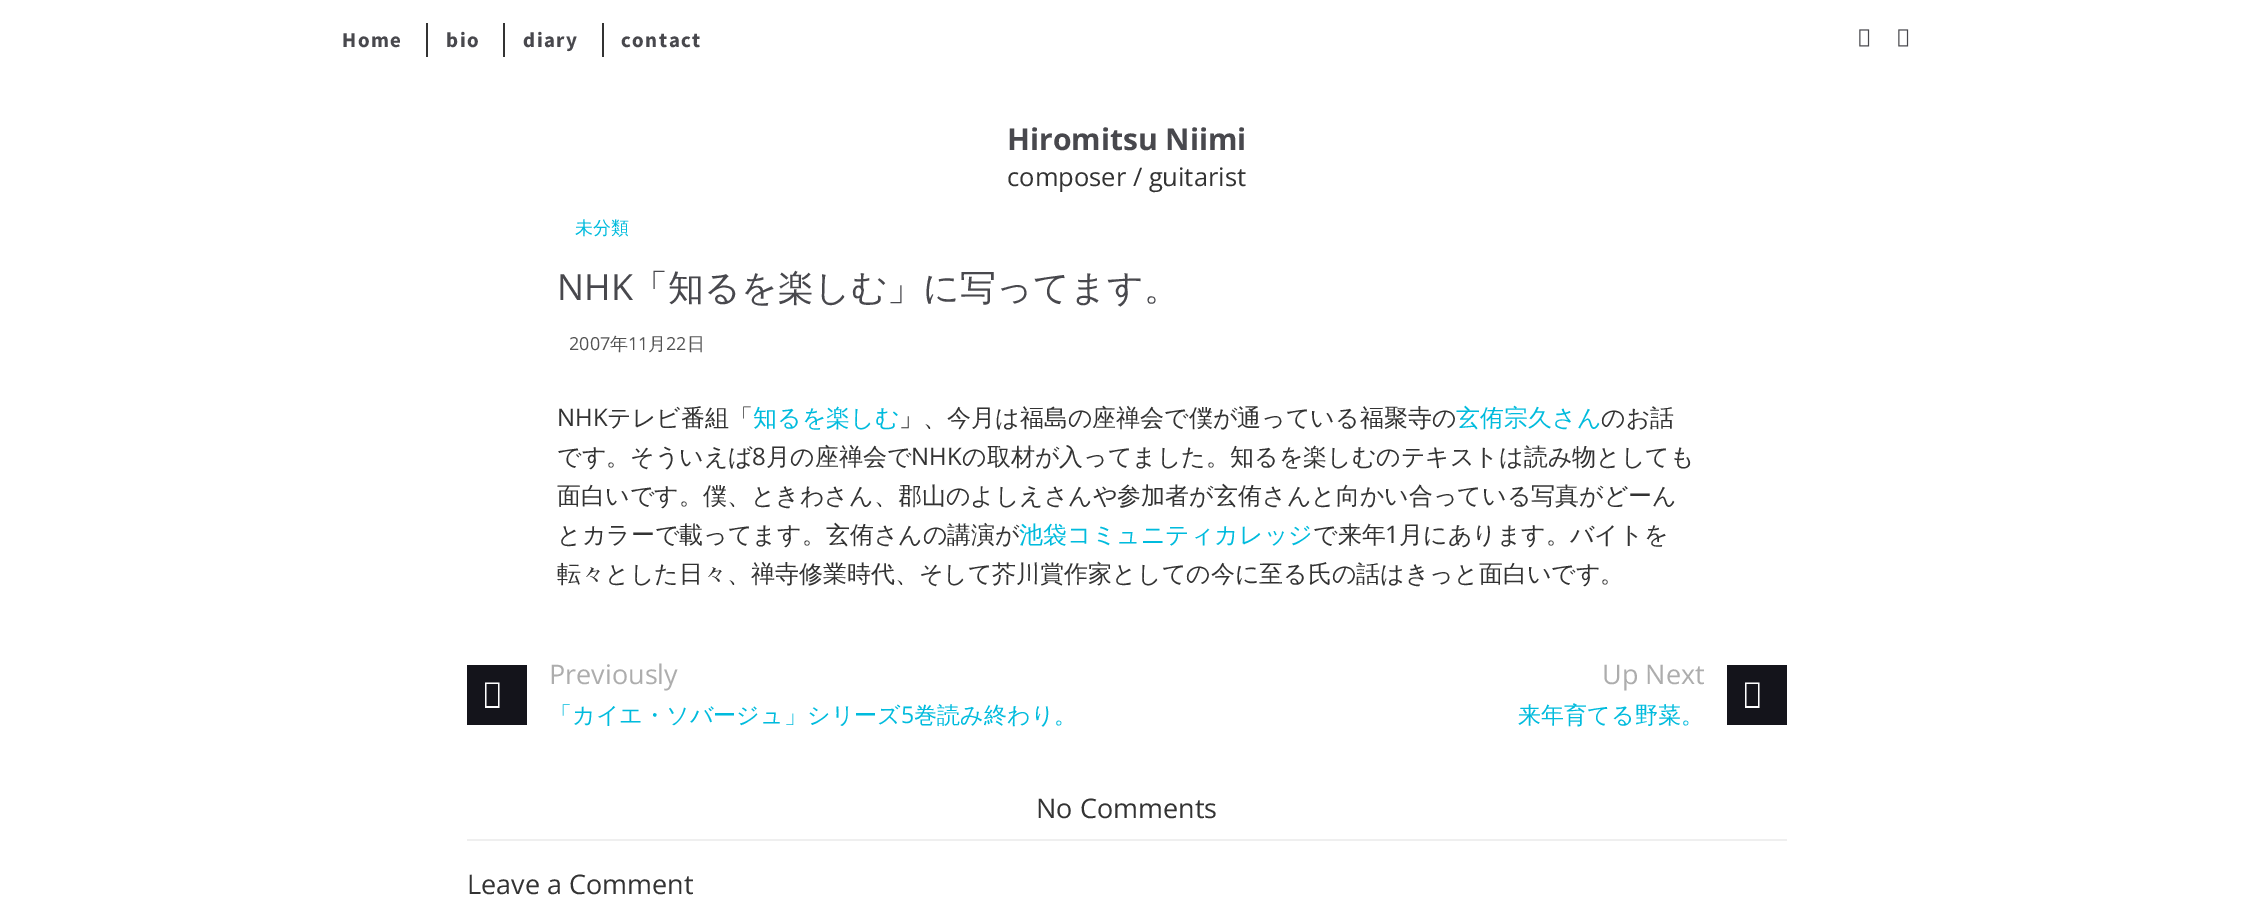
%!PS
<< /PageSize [2252 900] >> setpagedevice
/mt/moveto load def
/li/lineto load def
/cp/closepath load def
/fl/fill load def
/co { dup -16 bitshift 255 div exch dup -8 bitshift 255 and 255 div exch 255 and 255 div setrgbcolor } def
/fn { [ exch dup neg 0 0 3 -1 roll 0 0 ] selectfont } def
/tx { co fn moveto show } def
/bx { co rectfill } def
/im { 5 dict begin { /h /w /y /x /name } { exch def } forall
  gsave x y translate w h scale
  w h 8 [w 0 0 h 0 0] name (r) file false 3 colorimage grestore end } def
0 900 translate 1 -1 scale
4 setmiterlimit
0 0 2252 900 16#FFFFFF bx
426 23 2 34 16#333333 bx
503 23 2 34 16#333333 bx
602 23 2 34 16#333333 bx
(media/1.raw) 1859 29 11 18 im
(media/1.raw) 1898 29 11 18 im
467 665 60 60 16#14141B bx
16#FFFFFF co
485 708 mt 485 682.5 li 499.5 682.5 li 499.5 708 li cp 486.5 706 mt 498 706 li 498 684 li 486.5 684 li cp fl
1727 665 60 60 16#14141B bx
16#FFFFFF co
1745 708 mt 1745 682.5 li 1759.5 682.5 li 1759.5 708 li cp 1746.5 706 mt 1758 706 li 1758 684 li 1746.5 684 li cp fl
467 839 1320 2 16#EFEFEF bx
/SourceSansPro-Bold 21 fn
16#48484D co
342 47 mt 1.5 0 (Home) ashow
446 47 mt 1.5 0 (bio) ashow
523 47 mt 1.5 0 (diary) ashow
621 47 mt 1.5 0 (contact) ashow
(Hiromitsu Niimi) 1007 150 /OpenSans-Bold 30 16#48484D tx
(composer / guitarist) 1007 186 /OpenSans-Regular 25.5 16#333333 tx
(未分類) 575 234 /WenQuanYiZenHei-Medium 18 16#00BBDD tx
(NHK) 557 300 /OpenSans-Regular 36 16#48484D tx
(「知るを楽しむ」に写ってます。) 632 300 /WenQuanYiZenHei-Medium 36 16#48484D tx
(2007) 569 350 /OpenSans-Regular 18 16#545454 tx
(年) 610 350 /WenQuanYiZenHei-Medium 18 16#545454 tx
(11) 628 350 /OpenSans-Regular 18 16#545454 tx
(月) 648 350 /WenQuanYiZenHei-Medium 18 16#545454 tx
(22) 666 350 /OpenSans-Regular 18 16#545454 tx
(日) 687 350 /WenQuanYiZenHei-Medium 18 16#545454 tx
(NHK) 557 426 /OpenSans-Regular 24 16#333333 tx
(テレビ番組「) 607 426 /WenQuanYiZenHei-Medium 24 16#333333 tx
(知るを楽しむ) 753 426 /WenQuanYiZenHei-Medium 24 16#00BBDD tx
(」、今月は福島の座禅会で僕が通っている福聚寺の) 899 426 /WenQuanYiZenHei-Medium 24 16#333333 tx
(玄侑宗久さん) 1456 426 /WenQuanYiZenHei-Medium 24 16#00BBDD tx
(のお話) 1601 426 /WenQuanYiZenHei-Medium 24 16#333333 tx
(です。そういえば) 557 465 /WenQuanYiZenHei-Medium 24 16#333333 tx
(8) 752 465 /OpenSans-Regular 24 16#333333 tx
(月の座禅会で) 766 465 /WenQuanYiZenHei-Medium 24 16#333333 tx
(NHK) 911 465 /OpenSans-Regular 24 16#333333 tx
(の取材が入ってました。知るを楽しむのテキストは読み物としても) 962 465 /WenQuanYiZenHei-Medium 24 16#333333 tx
(面白いです。僕、ときわさん、郡山のよしえさんや参加者が玄侑さんと向かい合っている写真がどーん) 557 504 /WenQuanYiZenHei-Medium 24 16#333333 tx
(とカラーで載ってます。玄侑さんの講演が) 557 543 /WenQuanYiZenHei-Medium 24 16#333333 tx
(池袋コミュニティカレッジ) 1019 543 /WenQuanYiZenHei-Medium 24 16#00BBDD tx
(で来年) 1313 543 /WenQuanYiZenHei-Medium 24 16#333333 tx
(1) 1385 543 /OpenSans-Regular 24 16#333333 tx
(月にあります。バイトを) 1399 543 /WenQuanYiZenHei-Medium 24 16#333333 tx
(転々とした日々、禅寺修業時代、そして芥川賞作家としての今に至る氏の話はきっと面白いです。) 557 582 /WenQuanYiZenHei-Medium 24 16#333333 tx
(Previously) 549 684 /OpenSans-Regular 27 16#ADADAD tx
(「カイエ・ソバージュ」シリーズ) 549 723 /WenQuanYiZenHei-Medium 23.1 16#00BBDD tx
(5) 901 723 /OpenSans-Regular 23.1 16#00BBDD tx
(巻読み終わり。) 914 723 /WenQuanYiZenHei-Medium 23.1 16#00BBDD tx
(Up Next) 1602 684 /OpenSans-Regular 27 16#ADADAD tx
(来年育てる野菜。) 1518 723 /WenQuanYiZenHei-Medium 23.1 16#00BBDD tx
(No Comments) 1036 818 /OpenSans-Regular 27 16#333333 tx
(Leave a Comment) 467 894 /OpenSans-Regular 27 16#333333 tx
showpage
